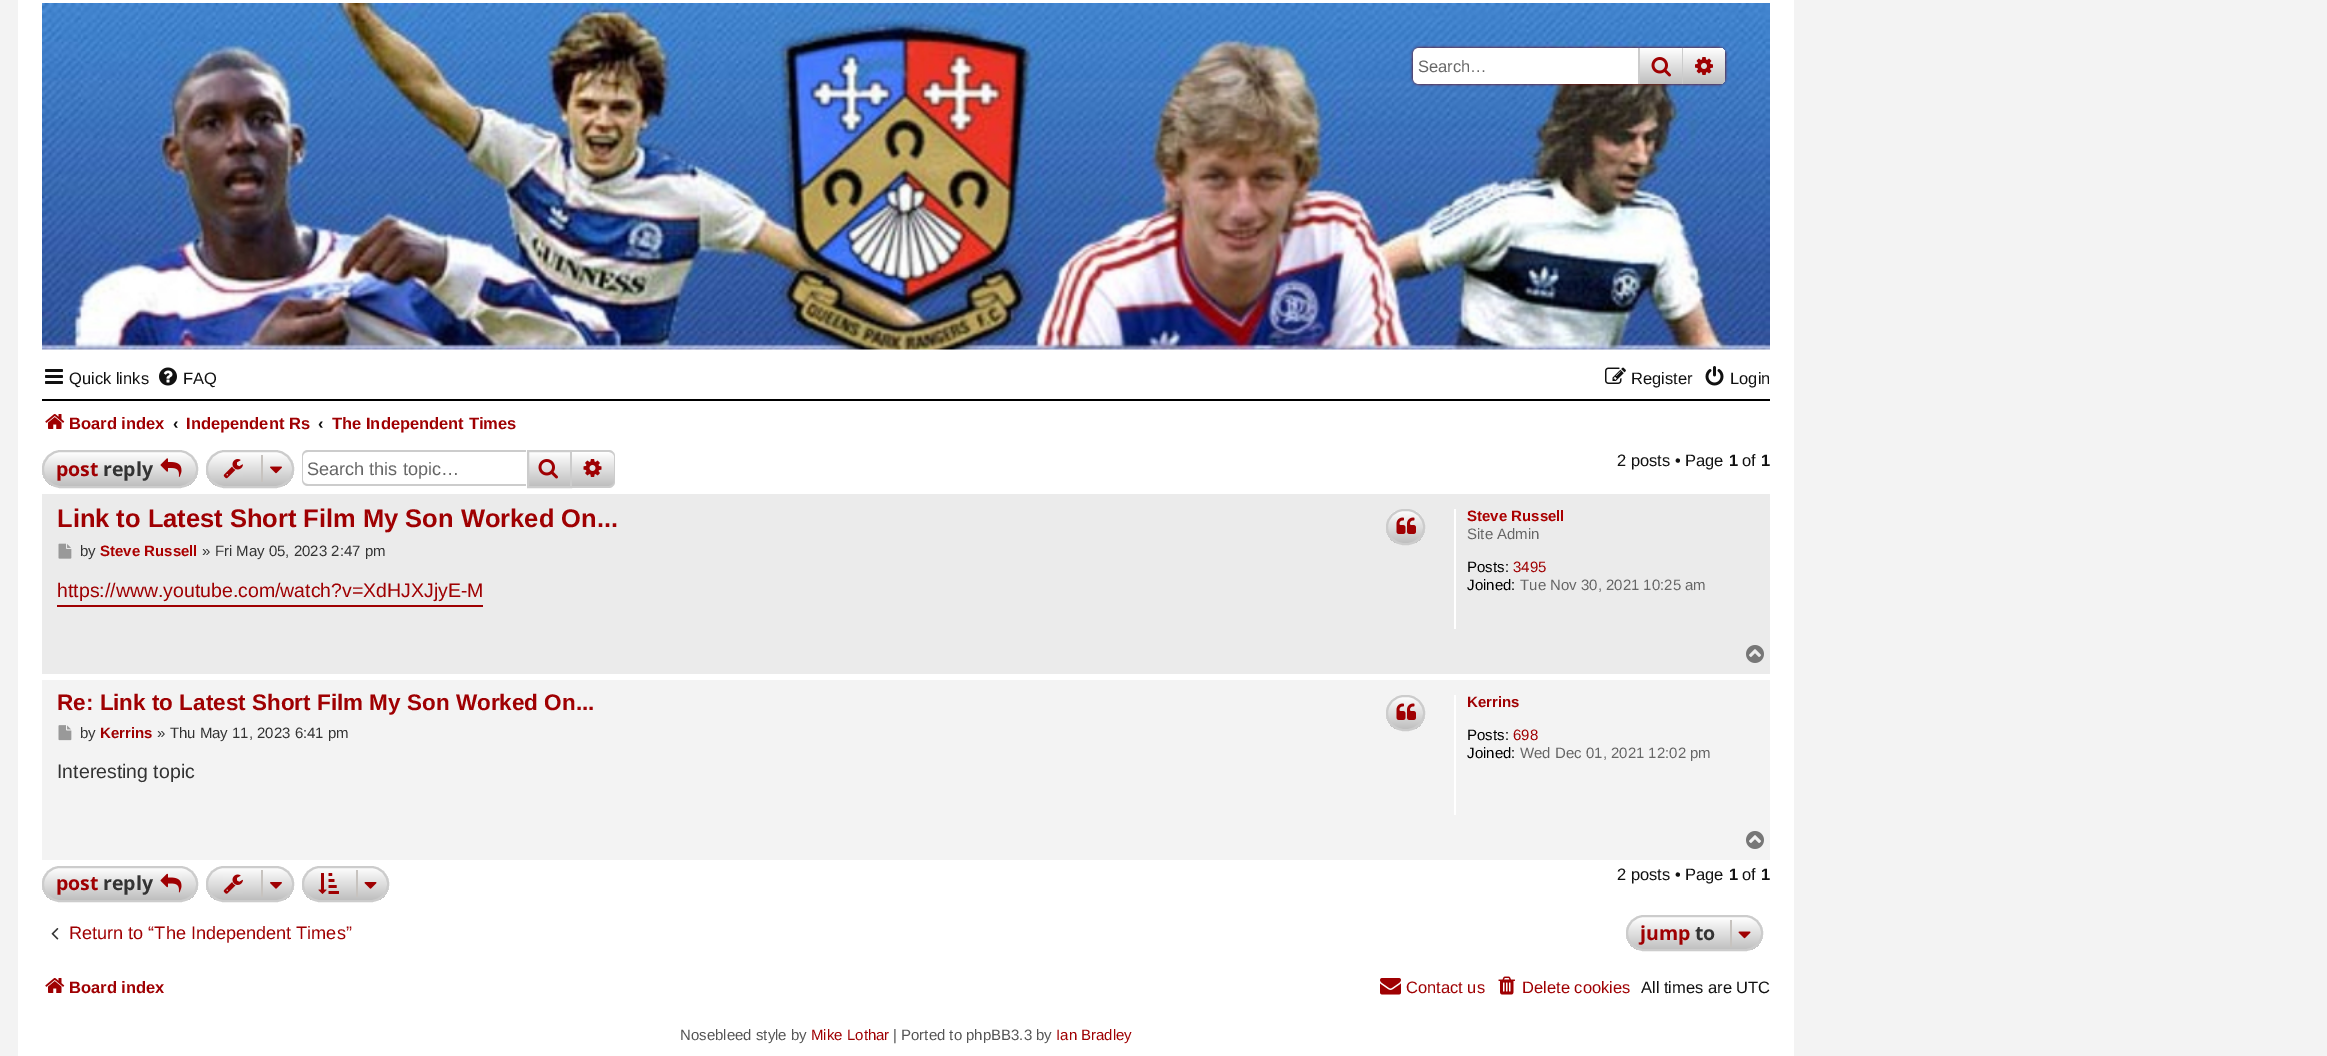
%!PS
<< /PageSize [2327 1056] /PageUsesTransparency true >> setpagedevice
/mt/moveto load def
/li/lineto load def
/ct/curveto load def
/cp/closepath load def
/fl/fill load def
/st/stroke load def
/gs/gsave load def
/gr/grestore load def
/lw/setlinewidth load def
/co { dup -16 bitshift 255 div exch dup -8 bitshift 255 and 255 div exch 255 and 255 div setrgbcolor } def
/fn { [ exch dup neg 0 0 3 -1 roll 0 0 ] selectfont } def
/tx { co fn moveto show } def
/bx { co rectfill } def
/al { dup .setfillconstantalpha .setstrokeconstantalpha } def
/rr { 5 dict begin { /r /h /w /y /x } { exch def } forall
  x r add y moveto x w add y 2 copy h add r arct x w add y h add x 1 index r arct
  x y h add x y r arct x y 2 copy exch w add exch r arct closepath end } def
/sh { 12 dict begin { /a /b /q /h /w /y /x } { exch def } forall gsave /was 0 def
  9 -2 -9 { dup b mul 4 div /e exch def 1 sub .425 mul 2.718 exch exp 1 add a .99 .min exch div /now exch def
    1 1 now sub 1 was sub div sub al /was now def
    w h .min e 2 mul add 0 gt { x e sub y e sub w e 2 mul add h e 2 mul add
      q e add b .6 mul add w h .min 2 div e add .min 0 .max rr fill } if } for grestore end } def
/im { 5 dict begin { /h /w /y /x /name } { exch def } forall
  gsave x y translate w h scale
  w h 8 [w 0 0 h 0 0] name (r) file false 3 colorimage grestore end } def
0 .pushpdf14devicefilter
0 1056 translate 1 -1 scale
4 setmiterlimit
0 0 2327 1056 16#F3F3F3 bx
18 0 1776 1056 16#FFFFFF bx
42 349 1728 1 16#F3F3F3 bx
(media/1.raw) 42 3 1728 347 im
16#760000 co
1413 48 312 36 6 1.5 1 sh
16#FFFFFF co
1419 48 mt 1638 48 li 1638 84 li 1419 84 li 1415.5 84 1413 81.5 1413 78 ct 1413 54 li 1413 50.5 1415.5 48 1419 48 ct cp fl
gs 1640 48 mt 1682 48 li 1682 84 li 1640 84 li cp clip newpath
<< /ShadingType 2 /ColorSpace /DeviceRGB /Coords [1661 48 1661 84] /Extend [true true] /Function << /FunctionType 2 /Domain [0 1] /C0 [1 1 1] /C1 [.749 .749 .749] /N 1 >> >> shfill gr
1682 48 1 36 16#CCCCCC bx
1638 48 2 36 16#CCCCCC bx
(media/2.raw) 1651 57 20 20 im
gs 1683 48 mt 1719 48 li 1722.5 48 1725 50.5 1725 54 ct 1725 78 li 1725 81.5 1722.5 84 1719 84 ct 1683 84 li cp clip newpath
<< /ShadingType 2 /ColorSpace /DeviceRGB /Coords [1704 48 1704 84] /Extend [true true] /Function << /FunctionType 2 /Domain [0 1] /C0 [1 1 1] /C1 [.749 .749 .749] /N 1 >> >> shfill gr
(media/3.raw) 1695 57 18 18 im
(media/4.raw) 45 369 18 15 im
(media/5.raw) 159 367 18 19 im
(media/6.raw) 1605 367 21 17 im
(media/7.raw) 1705 366 19 20 im
42 399 1728 2 16#000000 bx
(media/8.raw) 45 414 20 15 im
gs
42 450 156 38 19 rr clip newpath
gs 42 452 mt 198 452 li 198 486 li 42 486 li cp clip newpath
<< /ShadingType 2 /ColorSpace /DeviceRGB /Coords [120 452 120 486] /Extend [true true] /Function << /FunctionType 2 /Domain [0 1] /C0 [1 1 1] /C1 [.749 .749 .749] /N 1 >> >> shfill gr
gr
16#CCCCCC co
2 lw
43 451 154 36 18 rr st
(media/9.raw) 160 458 22 19 im
gs
206 450 88 38 19 rr clip newpath
gs 206 452 mt 294 452 li 294 486 li 206 486 li cp clip newpath
<< /ShadingType 2 /ColorSpace /DeviceRGB /Coords [250 452 250 486] /Extend [true true] /Function << /FunctionType 2 /Domain [0 1] /C0 [1 1 1] /C1 [.749 .749 .749] /N 1 >> >> shfill gr
gr
207 451 86 36 18 rr st
(media/10.raw) 223 459 20 20 im
261 455 2 27 16#C7C3BF bx
(media/11.raw) 270 466 12 8 im
16#CCCCCC co
308 450 mt 526 450 li 526 486 li 308 486 li 304 486 302 483 302 480 ct 302 456 li 302 453 304 450 308 450 ct cp 308 452 mt 526 452 li 526 484 li 308 484 li 305 484 303 482 303 480 ct 303 456 li 303 454 305 452 308 452 ct cp eofill
gs 529 453 mt 570 453 li 570 486 li 529 486 li cp clip newpath
<< /ShadingType 2 /ColorSpace /DeviceRGB /Coords [549 452 549 486] /Extend [true true] /Function << /FunctionType 2 /Domain [0 1] /C0 [1 1 1] /C1 [.749 .749 .749] /N 1 >> >> shfill gr
528 451 43 36 rectstroke
(media/12.raw) 538 459 20 20 im
gs 572 452 mt 609 452 li 612 452 614 454 614 457 ct 614 481 li 614 484 612 486 609 486 ct 572 486 li cp clip newpath
<< /ShadingType 2 /ColorSpace /DeviceRGB /Coords [593 452 593 486] /Extend [true true] /Function << /FunctionType 2 /Domain [0 1] /C0 [1 1 1] /C1 [.749 .749 .749] /N 1 >> >> shfill gr
572 450 mt 609 450 li 612 450 615 453 615 456 ct 615 482 li 615 485 612 488 609 488 ct 572 488 li cp 572 452 mt 609 452 li 611 452 614 454 614 456 ct 614 482 li 614 484 611 486 609 486 ct 572 486 li cp eofill
(media/13.raw) 583 459 19 18 im
42 494 1728 180 16#EBEBEB bx
gs
1386 509 39 36 18 rr clip newpath
gs 1386 510 mt 1425 510 li 1425 543 li 1386 543 li cp clip newpath
<< /ShadingType 2 /ColorSpace /DeviceRGB /Coords [1406 510 1406 543] /Extend [true true] /Function << /FunctionType 2 /Domain [0 1] /C0 [1 1 1] /C1 [.749 .749 .749] /N 1 >> >> shfill gr
gr
16#CCCCCC co
1387 510 37 34 17 rr st
(media/14.raw) 1396 517 20 17 im
(media/15.raw) 58 543 14 16 im
57 605 426 2 16#9F0002 bx
1454 509 2 120 16#FFFFFF bx
(media/16.raw) 1746 645 18 18 im
42 680 1728 180 16#F3F3F3 bx
gs
1386 695 39 36 18 rr clip newpath
gs 1386 696 mt 1425 696 li 1425 729 li 1386 729 li cp clip newpath
<< /ShadingType 2 /ColorSpace /DeviceRGB /Coords [1406 696 1406 729] /Extend [true true] /Function << /FunctionType 2 /Domain [0 1] /C0 [1 1 1] /C1 [.749 .749 .749] /N 1 >> >> shfill gr
gr
16#CCCCCC co
1387 696 37 34 17 rr st
(media/14.raw) 1396 703 20 17 im
(media/17.raw) 58 725 14 16 im
1454 695 2 120 16#FFFFFF bx
(media/18.raw) 1746 831 18 18 im
gs
42 866 156 36 18 rr clip newpath
gs 42 867 mt 198 867 li 198 900 li 42 900 li cp clip newpath
<< /ShadingType 2 /ColorSpace /DeviceRGB /Coords [120 867 120 900] /Extend [true true] /Function << /FunctionType 2 /Domain [0 1] /C0 [1 1 1] /C1 [.749 .749 .749] /N 1 >> >> shfill gr
gr
16#CCCCCC co
43 867 154 34 17 rr st
(media/19.raw) 160 873 22 20 im
gs
206 866 88 36 18 rr clip newpath
gs 206 867 mt 294 867 li 294 900 li 206 900 li cp clip newpath
<< /ShadingType 2 /ColorSpace /DeviceRGB /Coords [250 867 250 900] /Extend [true true] /Function << /FunctionType 2 /Domain [0 1] /C0 [1 1 1] /C1 [.749 .749 .749] /N 1 >> >> shfill gr
gr
207 867 86 34 17 rr st
(media/20.raw) 223 874 20 20 im
261 870 2 27 16#C7C3BF bx
(media/21.raw) 270 882 12 7 im
gs
302 866 87 36 18 rr clip newpath
gs 302 867 mt 389 867 li 389 900 li 302 900 li cp clip newpath
<< /ShadingType 2 /ColorSpace /DeviceRGB /Coords [345 867 345 900] /Extend [true true] /Function << /FunctionType 2 /Domain [0 1] /C0 [1 1 1] /C1 [.749 .749 .749] /N 1 >> >> shfill gr
gr
16#CCCCCC co
303 867 85 34 17 rr st
(media/22.raw) 318 873 21 21 im
356 870 2 27 16#C7C3BF bx
(media/23.raw) 364 882 13 7 im
(media/24.raw) 51 928 8 12 im
gs
1626 915 137 36 18 rr clip newpath
gs 1626 917 mt 1763 917 li 1763 950 li 1626 950 li cp clip newpath
<< /ShadingType 2 /ColorSpace /DeviceRGB /Coords [1694 917 1694 950] /Extend [true true] /Function << /FunctionType 2 /Domain [0 1] /C0 [1 1 1] /C1 [.749 .749 .749] /N 1 >> >> shfill gr
gr
16#CCCCCC co
1627 916 135 34 17 rr st
1730 920 2 27 16#C7C3BF bx
(media/25.raw) 1738 931 13 8 im
(media/8.raw) 45 978 20 15 im
(media/26.raw) 1380 978 21 17 im
(media/27.raw) 1498 976 17 19 im
(Search…) 1418 72 /LiberationSans-Regular 16.5 16#666666 tx
(Quick links) 69 384 /LiberationSans-Regular 16.5 16#111111 tx
(FAQ) 183 384 /LiberationSans-Regular 16.5 16#111111 tx
(Register) 1631 384 /LiberationSans-Regular 16.5 16#111111 tx
(Login) 1730 384 /LiberationSans-Regular 16.5 16#111111 tx
(Board index) 69 429 /LiberationSans-Bold 16.5 16#9F0002 tx
(‹) 173 429 /LiberationSans-Bold 16.5 16#111111 tx
(Independent Rs) 186 429 /LiberationSans-Bold 16.5 16#9F0002 tx
(‹) 318 429 /LiberationSans-Bold 16.5 16#111111 tx
(The Independent Times) 332 429 /LiberationSans-Bold 16.5 16#9F0002 tx
(post) 56 476 /OpenSans-Bold 19.5 16#9F0002 tx
(reply) 103 476 /OpenSans-Bold 19.5 16#333333 tx
(Search this topic…) 307 475 /LiberationSans-Regular 18.1 16#666666 tx
(2 posts • Page) 1617 466 /LiberationSans-Regular 16.5 16#111111 tx
(1) 1729 466 /LiberationSans-Bold 16.5 16#111111 tx
(of) 1742 466 /LiberationSans-Regular 16.5 16#111111 tx
(1) 1761 466 /LiberationSans-Bold 16.5 16#111111 tx
(Link to Latest Short Film My Son Worked On...) 57 527 /LiberationSans-Bold 25.5 16#9F0002 tx
(by) 80 556 /LiberationSans-Regular 15 16#333333 tx
(Steve Russell) 100 556 /LiberationSans-Bold 15 16#AA0000 tx
(» Fri May 05, 2023 2:47 pm) 202 556 /LiberationSans-Regular 15 16#333333 tx
(https://www.youtube.com/watch?v=XdHJXJjyE-M) 57 597 /LiberationSans-Regular 19.5 16#9F0002 tx
(Steve Russell) 1467 521 /LiberationSans-Bold 15 16#AA0000 tx
(Site Admin) 1467 539 /LiberationSans-Regular 15 16#666666 tx
(Posts:) 1467 572 /LiberationSans-Regular 15 16#000000 tx
(3495) 1513 572 /LiberationSans-Regular 15 16#9F0002 tx
(Joined:) 1467 590 /LiberationSans-Regular 15 16#000000 tx
(Tue Nov 30, 2021 10:25 am) 1520 590 /LiberationSans-Regular 15 16#666666 tx
(Re: Link to Latest Short Film My Son Worked On...) 57 710 /LiberationSans-Bold 22.5 16#9F0002 tx
(by) 80 738 /LiberationSans-Regular 15 16#333333 tx
(Kerrins) 100 738 /LiberationSans-Bold 15 16#9F0002 tx
(» Thu May 11, 2023 6:41 pm) 157 738 /LiberationSans-Regular 15 16#333333 tx
(Interesting topic) 57 778 /LiberationSans-Regular 19.5 16#333333 tx
(Kerrins) 1467 707 /LiberationSans-Bold 15 16#9F0002 tx
(Posts:) 1467 740 /LiberationSans-Regular 15 16#000000 tx
(698) 1513 740 /LiberationSans-Regular 15 16#9F0002 tx
(Joined:) 1467 758 /LiberationSans-Regular 15 16#000000 tx
(Wed Dec 01, 2021 12:02 pm) 1520 758 /LiberationSans-Regular 15 16#666666 tx
(post) 56 890 /OpenSans-Bold 19.5 16#9F0002 tx
(reply) 103 890 /OpenSans-Bold 19.5 16#333333 tx
(2 posts • Page) 1617 880 /LiberationSans-Regular 16.5 16#111111 tx
(1) 1729 880 /LiberationSans-Bold 16.5 16#111111 tx
(of) 1742 880 /LiberationSans-Regular 16.5 16#111111 tx
(1) 1761 880 /LiberationSans-Bold 16.5 16#111111 tx
(Return to “The Independent Times”) 69 939 /LiberationSans-Regular 18.1 16#9F0002 tx
(jump) 1640 940 /OpenSans-Bold 19.5 16#9F0002 tx
(to) 1695 940 /OpenSans-Bold 19.5 16#333333 tx
(Board index) 69 993 /LiberationSans-Bold 16.5 16#9F0002 tx
(Contact us) 1406 993 /LiberationSans-Regular 16.5 16#9F0002 tx
(Delete cookies) 1522 993 /LiberationSans-Regular 16.5 16#9F0002 tx
(All times are UTC) 1641 993 /LiberationSans-Regular 16.5 16#111111 tx
(Nosebleed style by) 680 1040 /LiberationSans-Regular 15 16#555555 tx
(Mike Lothar) 811 1040 /LiberationSans-Regular 15 16#9F0002 tx
(| Ported to phpBB3.3 by) 893 1040 /LiberationSans-Regular 15 16#555555 tx
(Ian Bradley) 1056 1040 /LiberationSans-Regular 15 16#9F0002 tx
.poppdf14devicefilter showpage
